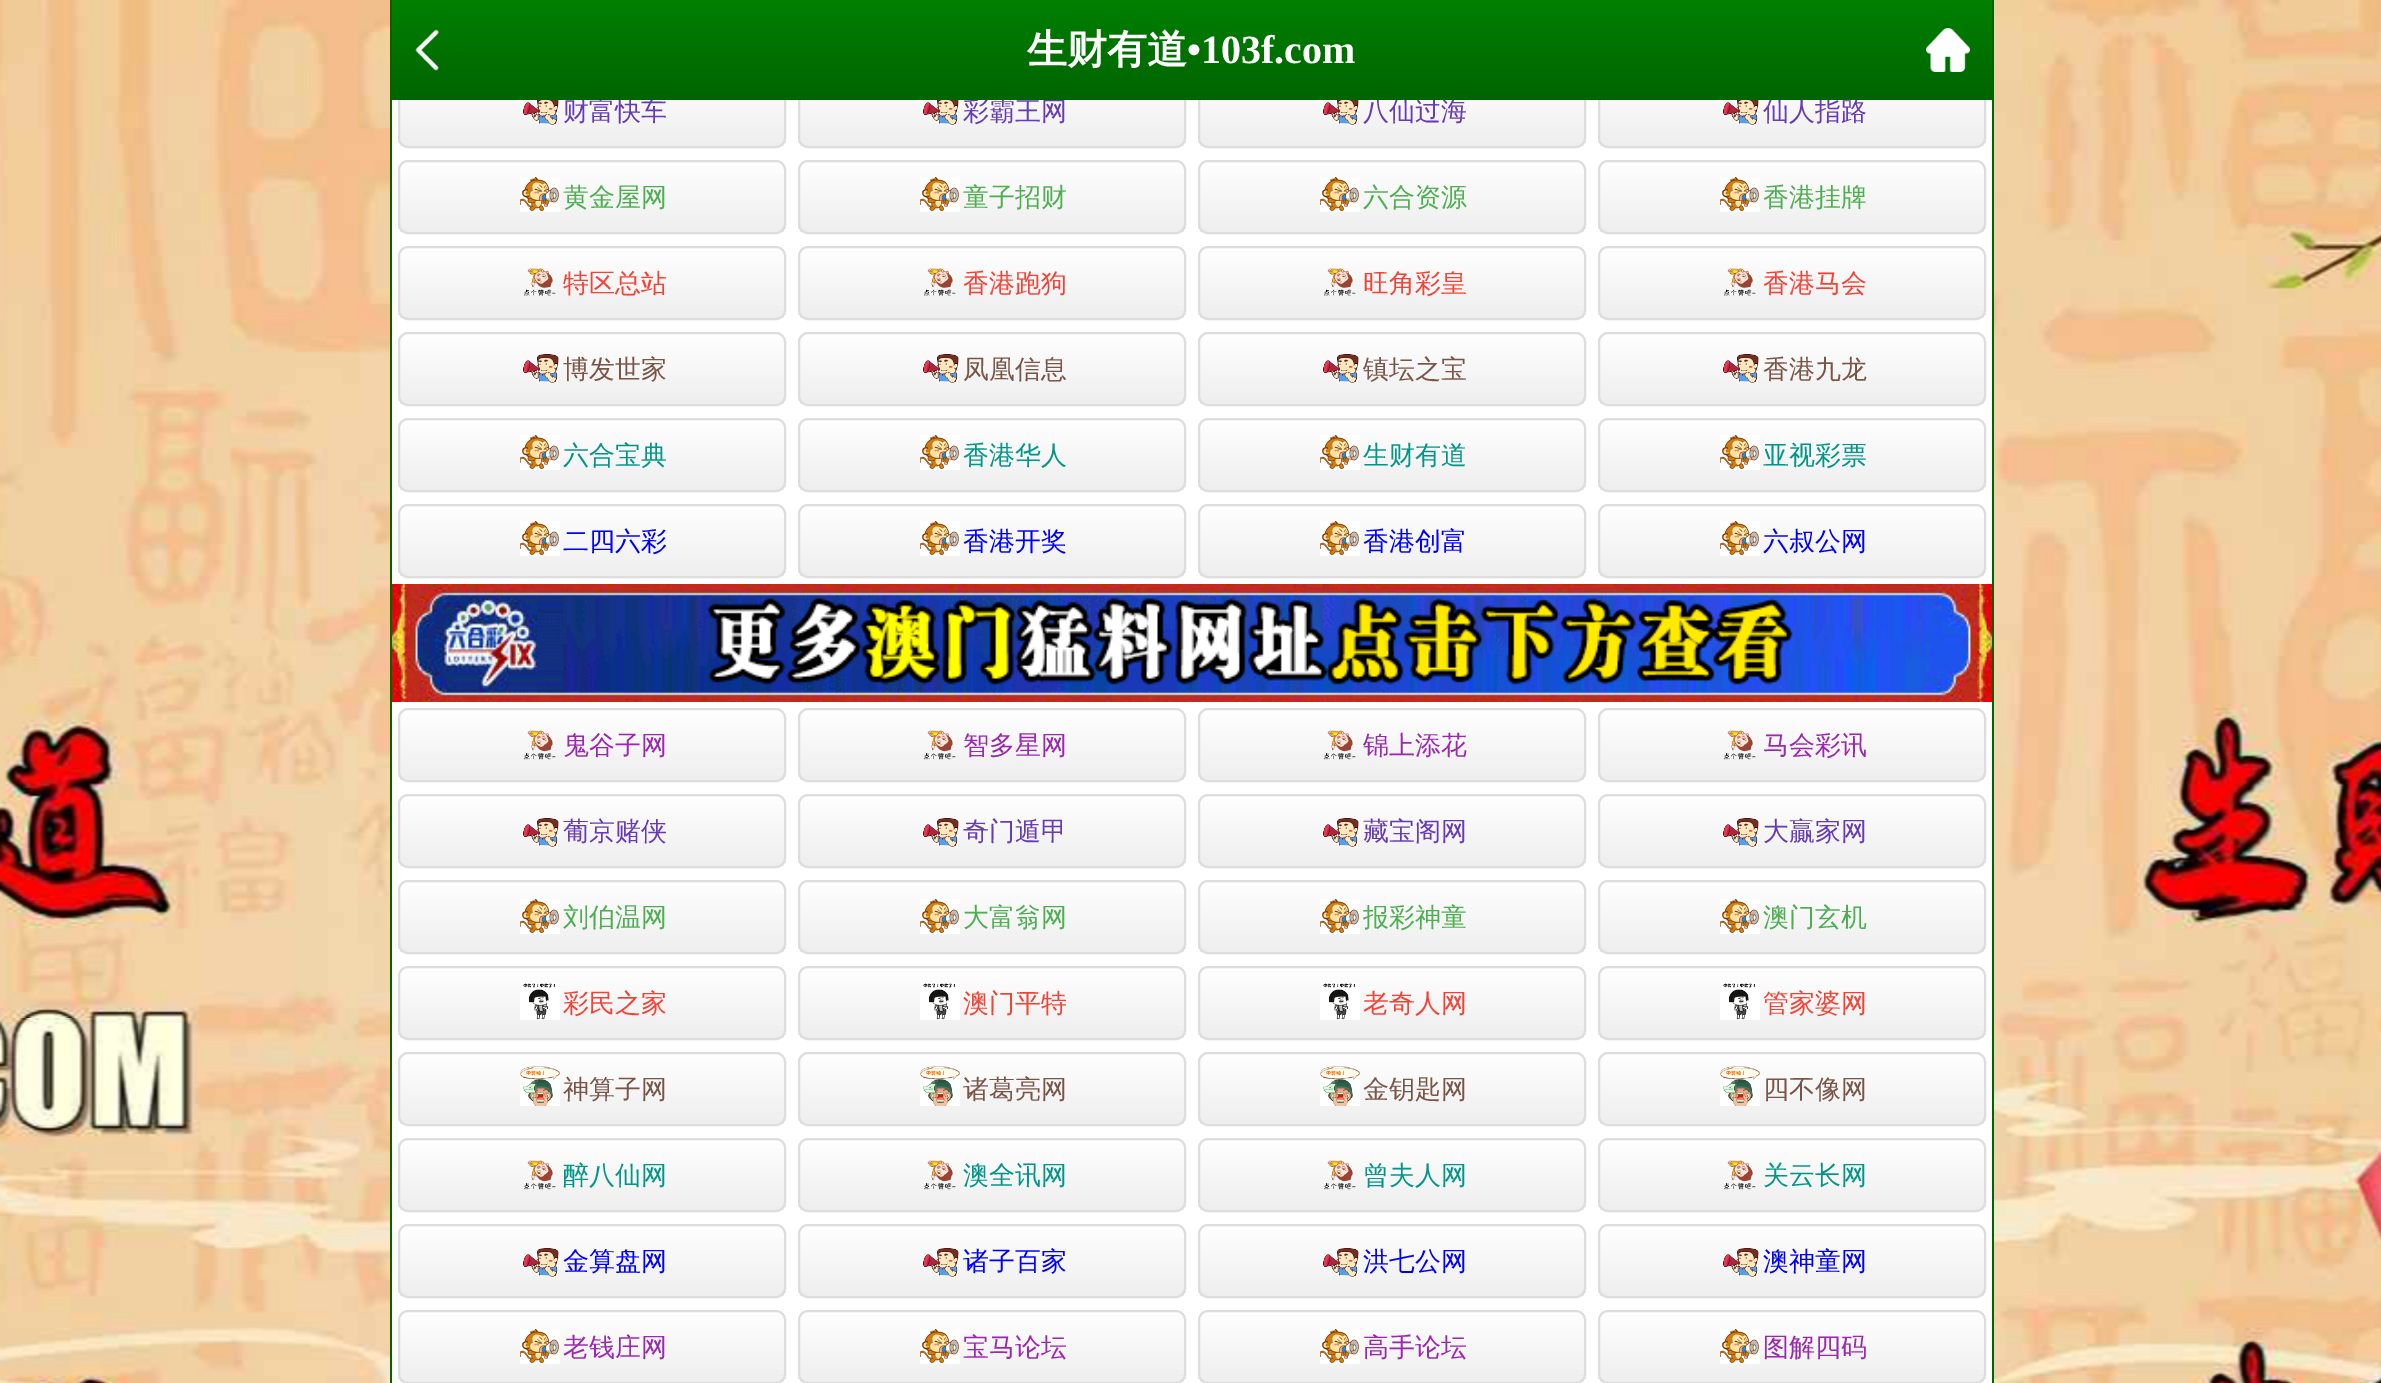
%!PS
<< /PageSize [2381 1383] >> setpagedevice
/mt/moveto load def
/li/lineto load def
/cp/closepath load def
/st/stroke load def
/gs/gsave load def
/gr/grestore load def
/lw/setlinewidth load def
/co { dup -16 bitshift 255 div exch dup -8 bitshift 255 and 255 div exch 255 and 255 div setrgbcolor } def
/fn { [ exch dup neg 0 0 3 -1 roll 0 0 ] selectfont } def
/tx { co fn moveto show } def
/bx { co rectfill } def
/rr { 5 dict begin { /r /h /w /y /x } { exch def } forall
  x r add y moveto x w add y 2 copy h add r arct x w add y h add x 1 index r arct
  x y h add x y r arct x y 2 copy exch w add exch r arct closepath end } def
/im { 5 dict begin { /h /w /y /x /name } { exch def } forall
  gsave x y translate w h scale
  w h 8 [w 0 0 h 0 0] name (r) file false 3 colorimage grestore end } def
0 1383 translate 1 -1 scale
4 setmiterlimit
0 0 2381 1383 16#FFFFFF bx
(media/1.raw) 0 0 2381 1383 im
392 100 1600 1283 16#FFFFFF bx
1992 0 2 1383 16#006400 bx
390 0 2 1383 16#006400 bx
gs
398 74 388 74 10 rr clip newpath
gs 398 100 mt 786 100 li 786 146 li 398 146 li cp clip newpath
<< /ShadingType 2 /ColorSpace /DeviceRGB /Coords [592 146 592 76] /Extend [true true] /Function << /FunctionType 2 /Domain [0 1] /C0 [.933 .933 .933] /C1 [1 1 1] /N 1 >> >> shfill gr
gr
16#DDDDDD co
2 lw
399 75 386 72 9 rr st
(media/4.raw) 522 100 37 26 im
gs
798 74 388 74 10 rr clip newpath
gs 798 100 mt 1186 100 li 1186 146 li 798 146 li cp clip newpath
<< /ShadingType 2 /ColorSpace /DeviceRGB /Coords [992 146 992 76] /Extend [true true] /Function << /FunctionType 2 /Domain [0 1] /C0 [.933 .933 .933] /C1 [1 1 1] /N 1 >> >> shfill gr
gr
799 75 386 72 9 rr st
(media/4.raw) 922 100 37 26 im
gs
1198 74 388 74 10 rr clip newpath
gs 1198 100 mt 1586 100 li 1586 146 li 1198 146 li cp clip newpath
<< /ShadingType 2 /ColorSpace /DeviceRGB /Coords [1392 146 1392 76] /Extend [true true] /Function << /FunctionType 2 /Domain [0 1] /C0 [.933 .933 .933] /C1 [1 1 1] /N 1 >> >> shfill gr
gr
1199 75 386 72 9 rr st
(media/4.raw) 1322 100 37 26 im
gs
1598 74 388 74 10 rr clip newpath
gs 1598 100 mt 1986 100 li 1986 146 li 1598 146 li cp clip newpath
<< /ShadingType 2 /ColorSpace /DeviceRGB /Coords [1792 146 1792 76] /Extend [true true] /Function << /FunctionType 2 /Domain [0 1] /C0 [.933 .933 .933] /C1 [1 1 1] /N 1 >> >> shfill gr
gr
1599 75 386 72 9 rr st
(media/4.raw) 1722 100 37 26 im
gs
398 160 388 74 10 rr clip newpath
gs 398 162 mt 786 162 li 786 232 li 398 232 li cp clip newpath
<< /ShadingType 2 /ColorSpace /DeviceRGB /Coords [592 232 592 162] /Extend [true true] /Function << /FunctionType 2 /Domain [0 1] /C0 [.933 .933 .933] /C1 [1 1 1] /N 1 >> >> shfill gr
gr
399 161 386 72 9 rr st
(media/5.raw) 520 177 40 35 im
gs
798 160 388 74 10 rr clip newpath
gs 798 162 mt 1186 162 li 1186 232 li 798 232 li cp clip newpath
<< /ShadingType 2 /ColorSpace /DeviceRGB /Coords [992 232 992 162] /Extend [true true] /Function << /FunctionType 2 /Domain [0 1] /C0 [.933 .933 .933] /C1 [1 1 1] /N 1 >> >> shfill gr
gr
799 161 386 72 9 rr st
(media/5.raw) 920 177 40 35 im
gs
1198 160 388 74 10 rr clip newpath
gs 1198 162 mt 1586 162 li 1586 232 li 1198 232 li cp clip newpath
<< /ShadingType 2 /ColorSpace /DeviceRGB /Coords [1392 232 1392 162] /Extend [true true] /Function << /FunctionType 2 /Domain [0 1] /C0 [.933 .933 .933] /C1 [1 1 1] /N 1 >> >> shfill gr
gr
1199 161 386 72 9 rr st
(media/5.raw) 1320 177 40 35 im
gs
1598 160 388 74 10 rr clip newpath
gs 1598 162 mt 1986 162 li 1986 232 li 1598 232 li cp clip newpath
<< /ShadingType 2 /ColorSpace /DeviceRGB /Coords [1792 232 1792 162] /Extend [true true] /Function << /FunctionType 2 /Domain [0 1] /C0 [.933 .933 .933] /C1 [1 1 1] /N 1 >> >> shfill gr
gr
1599 161 386 72 9 rr st
(media/5.raw) 1720 177 40 35 im
gs
398 246 388 74 10 rr clip newpath
gs 398 248 mt 786 248 li 786 318 li 398 318 li cp clip newpath
<< /ShadingType 2 /ColorSpace /DeviceRGB /Coords [592 318 592 248] /Extend [true true] /Function << /FunctionType 2 /Domain [0 1] /C0 [.933 .933 .933] /C1 [1 1 1] /N 1 >> >> shfill gr
gr
399 247 386 72 9 rr st
(media/6.raw) 523 268 33 28 im
gs
798 246 388 74 10 rr clip newpath
gs 798 248 mt 1186 248 li 1186 318 li 798 318 li cp clip newpath
<< /ShadingType 2 /ColorSpace /DeviceRGB /Coords [992 318 992 248] /Extend [true true] /Function << /FunctionType 2 /Domain [0 1] /C0 [.933 .933 .933] /C1 [1 1 1] /N 1 >> >> shfill gr
gr
799 247 386 72 9 rr st
(media/7.raw) 923 268 33 28 im
gs
1198 246 388 74 10 rr clip newpath
gs 1198 248 mt 1586 248 li 1586 318 li 1198 318 li cp clip newpath
<< /ShadingType 2 /ColorSpace /DeviceRGB /Coords [1392 318 1392 248] /Extend [true true] /Function << /FunctionType 2 /Domain [0 1] /C0 [.933 .933 .933] /C1 [1 1 1] /N 1 >> >> shfill gr
gr
1199 247 386 72 9 rr st
(media/7.raw) 1323 268 33 28 im
gs
1598 246 388 74 10 rr clip newpath
gs 1598 248 mt 1986 248 li 1986 318 li 1598 318 li cp clip newpath
<< /ShadingType 2 /ColorSpace /DeviceRGB /Coords [1792 318 1792 248] /Extend [true true] /Function << /FunctionType 2 /Domain [0 1] /C0 [.933 .933 .933] /C1 [1 1 1] /N 1 >> >> shfill gr
gr
1599 247 386 72 9 rr st
(media/8.raw) 1723 268 33 28 im
gs
398 332 388 74 10 rr clip newpath
gs 398 334 mt 786 334 li 786 404 li 398 404 li cp clip newpath
<< /ShadingType 2 /ColorSpace /DeviceRGB /Coords [592 404 592 334] /Extend [true true] /Function << /FunctionType 2 /Domain [0 1] /C0 [.933 .933 .933] /C1 [1 1 1] /N 1 >> >> shfill gr
gr
399 333 386 72 9 rr st
(media/9.raw) 522 354 37 30 im
gs
798 332 388 74 10 rr clip newpath
gs 798 334 mt 1186 334 li 1186 404 li 798 404 li cp clip newpath
<< /ShadingType 2 /ColorSpace /DeviceRGB /Coords [992 404 992 334] /Extend [true true] /Function << /FunctionType 2 /Domain [0 1] /C0 [.933 .933 .933] /C1 [1 1 1] /N 1 >> >> shfill gr
gr
799 333 386 72 9 rr st
(media/9.raw) 922 354 37 30 im
gs
1198 332 388 74 10 rr clip newpath
gs 1198 334 mt 1586 334 li 1586 404 li 1198 404 li cp clip newpath
<< /ShadingType 2 /ColorSpace /DeviceRGB /Coords [1392 404 1392 334] /Extend [true true] /Function << /FunctionType 2 /Domain [0 1] /C0 [.933 .933 .933] /C1 [1 1 1] /N 1 >> >> shfill gr
gr
1199 333 386 72 9 rr st
(media/9.raw) 1322 354 37 30 im
gs
1598 332 388 74 10 rr clip newpath
gs 1598 334 mt 1986 334 li 1986 404 li 1598 404 li cp clip newpath
<< /ShadingType 2 /ColorSpace /DeviceRGB /Coords [1792 404 1792 334] /Extend [true true] /Function << /FunctionType 2 /Domain [0 1] /C0 [.933 .933 .933] /C1 [1 1 1] /N 1 >> >> shfill gr
gr
1599 333 386 72 9 rr st
(media/9.raw) 1722 354 37 30 im
gs
398 418 388 74 10 rr clip newpath
gs 398 420 mt 786 420 li 786 490 li 398 490 li cp clip newpath
<< /ShadingType 2 /ColorSpace /DeviceRGB /Coords [592 490 592 420] /Extend [true true] /Function << /FunctionType 2 /Domain [0 1] /C0 [.933 .933 .933] /C1 [1 1 1] /N 1 >> >> shfill gr
gr
399 419 386 72 9 rr st
(media/5.raw) 520 435 40 35 im
gs
798 418 388 74 10 rr clip newpath
gs 798 420 mt 1186 420 li 1186 490 li 798 490 li cp clip newpath
<< /ShadingType 2 /ColorSpace /DeviceRGB /Coords [992 490 992 420] /Extend [true true] /Function << /FunctionType 2 /Domain [0 1] /C0 [.933 .933 .933] /C1 [1 1 1] /N 1 >> >> shfill gr
gr
799 419 386 72 9 rr st
(media/5.raw) 920 435 40 35 im
gs
1198 418 388 74 10 rr clip newpath
gs 1198 420 mt 1586 420 li 1586 490 li 1198 490 li cp clip newpath
<< /ShadingType 2 /ColorSpace /DeviceRGB /Coords [1392 490 1392 420] /Extend [true true] /Function << /FunctionType 2 /Domain [0 1] /C0 [.933 .933 .933] /C1 [1 1 1] /N 1 >> >> shfill gr
gr
1199 419 386 72 9 rr st
(media/5.raw) 1320 435 40 35 im
gs
1598 418 388 74 10 rr clip newpath
gs 1598 420 mt 1986 420 li 1986 490 li 1598 490 li cp clip newpath
<< /ShadingType 2 /ColorSpace /DeviceRGB /Coords [1792 490 1792 420] /Extend [true true] /Function << /FunctionType 2 /Domain [0 1] /C0 [.933 .933 .933] /C1 [1 1 1] /N 1 >> >> shfill gr
gr
1599 419 386 72 9 rr st
(media/5.raw) 1720 435 40 35 im
gs
398 504 388 74 10 rr clip newpath
gs 398 506 mt 786 506 li 786 576 li 398 576 li cp clip newpath
<< /ShadingType 2 /ColorSpace /DeviceRGB /Coords [592 576 592 506] /Extend [true true] /Function << /FunctionType 2 /Domain [0 1] /C0 [.933 .933 .933] /C1 [1 1 1] /N 1 >> >> shfill gr
gr
399 505 386 72 9 rr st
(media/5.raw) 520 521 40 35 im
gs
798 504 388 74 10 rr clip newpath
gs 798 506 mt 1186 506 li 1186 576 li 798 576 li cp clip newpath
<< /ShadingType 2 /ColorSpace /DeviceRGB /Coords [992 576 992 506] /Extend [true true] /Function << /FunctionType 2 /Domain [0 1] /C0 [.933 .933 .933] /C1 [1 1 1] /N 1 >> >> shfill gr
gr
799 505 386 72 9 rr st
(media/5.raw) 920 521 40 35 im
gs
1198 504 388 74 10 rr clip newpath
gs 1198 506 mt 1586 506 li 1586 576 li 1198 576 li cp clip newpath
<< /ShadingType 2 /ColorSpace /DeviceRGB /Coords [1392 576 1392 506] /Extend [true true] /Function << /FunctionType 2 /Domain [0 1] /C0 [.933 .933 .933] /C1 [1 1 1] /N 1 >> >> shfill gr
gr
1199 505 386 72 9 rr st
(media/5.raw) 1320 521 40 35 im
gs
1598 504 388 74 10 rr clip newpath
gs 1598 506 mt 1986 506 li 1986 576 li 1598 576 li cp clip newpath
<< /ShadingType 2 /ColorSpace /DeviceRGB /Coords [1792 576 1792 506] /Extend [true true] /Function << /FunctionType 2 /Domain [0 1] /C0 [.933 .933 .933] /C1 [1 1 1] /N 1 >> >> shfill gr
gr
1599 505 386 72 9 rr st
(media/5.raw) 1720 521 40 35 im
(media/10.raw) 392 584 1600 118 im
gs
398 708 388 74 10 rr clip newpath
gs 398 710 mt 786 710 li 786 780 li 398 780 li cp clip newpath
<< /ShadingType 2 /ColorSpace /DeviceRGB /Coords [592 780 592 710] /Extend [true true] /Function << /FunctionType 2 /Domain [0 1] /C0 [.933 .933 .933] /C1 [1 1 1] /N 1 >> >> shfill gr
gr
399 709 386 72 9 rr st
(media/11.raw) 523 730 33 30 im
gs
798 708 388 74 10 rr clip newpath
gs 798 710 mt 1186 710 li 1186 780 li 798 780 li cp clip newpath
<< /ShadingType 2 /ColorSpace /DeviceRGB /Coords [992 780 992 710] /Extend [true true] /Function << /FunctionType 2 /Domain [0 1] /C0 [.933 .933 .933] /C1 [1 1 1] /N 1 >> >> shfill gr
gr
799 709 386 72 9 rr st
(media/12.raw) 923 730 33 30 im
gs
1198 708 388 74 10 rr clip newpath
gs 1198 710 mt 1586 710 li 1586 780 li 1198 780 li cp clip newpath
<< /ShadingType 2 /ColorSpace /DeviceRGB /Coords [1392 780 1392 710] /Extend [true true] /Function << /FunctionType 2 /Domain [0 1] /C0 [.933 .933 .933] /C1 [1 1 1] /N 1 >> >> shfill gr
gr
1199 709 386 72 9 rr st
(media/12.raw) 1323 730 33 30 im
gs
1598 708 388 74 10 rr clip newpath
gs 1598 710 mt 1986 710 li 1986 780 li 1598 780 li cp clip newpath
<< /ShadingType 2 /ColorSpace /DeviceRGB /Coords [1792 780 1792 710] /Extend [true true] /Function << /FunctionType 2 /Domain [0 1] /C0 [.933 .933 .933] /C1 [1 1 1] /N 1 >> >> shfill gr
gr
1599 709 386 72 9 rr st
(media/13.raw) 1723 730 33 30 im
gs
398 794 388 74 10 rr clip newpath
gs 398 796 mt 786 796 li 786 866 li 398 866 li cp clip newpath
<< /ShadingType 2 /ColorSpace /DeviceRGB /Coords [592 866 592 796] /Extend [true true] /Function << /FunctionType 2 /Domain [0 1] /C0 [.933 .933 .933] /C1 [1 1 1] /N 1 >> >> shfill gr
gr
399 795 386 72 9 rr st
(media/14.raw) 522 818 37 30 im
gs
798 794 388 74 10 rr clip newpath
gs 798 796 mt 1186 796 li 1186 866 li 798 866 li cp clip newpath
<< /ShadingType 2 /ColorSpace /DeviceRGB /Coords [992 866 992 796] /Extend [true true] /Function << /FunctionType 2 /Domain [0 1] /C0 [.933 .933 .933] /C1 [1 1 1] /N 1 >> >> shfill gr
gr
799 795 386 72 9 rr st
(media/14.raw) 922 818 37 30 im
gs
1198 794 388 74 10 rr clip newpath
gs 1198 796 mt 1586 796 li 1586 866 li 1198 866 li cp clip newpath
<< /ShadingType 2 /ColorSpace /DeviceRGB /Coords [1392 866 1392 796] /Extend [true true] /Function << /FunctionType 2 /Domain [0 1] /C0 [.933 .933 .933] /C1 [1 1 1] /N 1 >> >> shfill gr
gr
1199 795 386 72 9 rr st
(media/14.raw) 1322 818 37 30 im
gs
1598 794 388 74 10 rr clip newpath
gs 1598 796 mt 1986 796 li 1986 866 li 1598 866 li cp clip newpath
<< /ShadingType 2 /ColorSpace /DeviceRGB /Coords [1792 866 1792 796] /Extend [true true] /Function << /FunctionType 2 /Domain [0 1] /C0 [.933 .933 .933] /C1 [1 1 1] /N 1 >> >> shfill gr
gr
1599 795 386 72 9 rr st
(media/14.raw) 1722 818 37 30 im
gs
398 880 388 74 10 rr clip newpath
gs 398 882 mt 786 882 li 786 952 li 398 952 li cp clip newpath
<< /ShadingType 2 /ColorSpace /DeviceRGB /Coords [592 952 592 882] /Extend [true true] /Function << /FunctionType 2 /Domain [0 1] /C0 [.933 .933 .933] /C1 [1 1 1] /N 1 >> >> shfill gr
gr
399 881 386 72 9 rr st
(media/5.raw) 520 899 40 35 im
gs
798 880 388 74 10 rr clip newpath
gs 798 882 mt 1186 882 li 1186 952 li 798 952 li cp clip newpath
<< /ShadingType 2 /ColorSpace /DeviceRGB /Coords [992 952 992 882] /Extend [true true] /Function << /FunctionType 2 /Domain [0 1] /C0 [.933 .933 .933] /C1 [1 1 1] /N 1 >> >> shfill gr
gr
799 881 386 72 9 rr st
(media/5.raw) 920 899 40 35 im
gs
1198 880 388 74 10 rr clip newpath
gs 1198 882 mt 1586 882 li 1586 952 li 1198 952 li cp clip newpath
<< /ShadingType 2 /ColorSpace /DeviceRGB /Coords [1392 952 1392 882] /Extend [true true] /Function << /FunctionType 2 /Domain [0 1] /C0 [.933 .933 .933] /C1 [1 1 1] /N 1 >> >> shfill gr
gr
1199 881 386 72 9 rr st
(media/5.raw) 1320 899 40 35 im
gs
1598 880 388 74 10 rr clip newpath
gs 1598 882 mt 1986 882 li 1986 952 li 1598 952 li cp clip newpath
<< /ShadingType 2 /ColorSpace /DeviceRGB /Coords [1792 952 1792 882] /Extend [true true] /Function << /FunctionType 2 /Domain [0 1] /C0 [.933 .933 .933] /C1 [1 1 1] /N 1 >> >> shfill gr
gr
1599 881 386 72 9 rr st
(media/5.raw) 1720 899 40 35 im
gs
398 966 388 74 10 rr clip newpath
gs 398 968 mt 786 968 li 786 1038 li 398 1038 li cp clip newpath
<< /ShadingType 2 /ColorSpace /DeviceRGB /Coords [592 1038 592 968] /Extend [true true] /Function << /FunctionType 2 /Domain [0 1] /C0 [.933 .933 .933] /C1 [1 1 1] /N 1 >> >> shfill gr
gr
399 967 386 72 9 rr st
(media/15.raw) 520 983 40 37 im
gs
798 966 388 74 10 rr clip newpath
gs 798 968 mt 1186 968 li 1186 1038 li 798 1038 li cp clip newpath
<< /ShadingType 2 /ColorSpace /DeviceRGB /Coords [992 1038 992 968] /Extend [true true] /Function << /FunctionType 2 /Domain [0 1] /C0 [.933 .933 .933] /C1 [1 1 1] /N 1 >> >> shfill gr
gr
799 967 386 72 9 rr st
(media/15.raw) 920 983 40 37 im
gs
1198 966 388 74 10 rr clip newpath
gs 1198 968 mt 1586 968 li 1586 1038 li 1198 1038 li cp clip newpath
<< /ShadingType 2 /ColorSpace /DeviceRGB /Coords [1392 1038 1392 968] /Extend [true true] /Function << /FunctionType 2 /Domain [0 1] /C0 [.933 .933 .933] /C1 [1 1 1] /N 1 >> >> shfill gr
gr
1199 967 386 72 9 rr st
(media/15.raw) 1320 983 40 37 im
gs
1598 966 388 74 10 rr clip newpath
gs 1598 968 mt 1986 968 li 1986 1038 li 1598 1038 li cp clip newpath
<< /ShadingType 2 /ColorSpace /DeviceRGB /Coords [1792 1038 1792 968] /Extend [true true] /Function << /FunctionType 2 /Domain [0 1] /C0 [.933 .933 .933] /C1 [1 1 1] /N 1 >> >> shfill gr
gr
1599 967 386 72 9 rr st
(media/15.raw) 1720 983 40 37 im
gs
398 1052 388 74 10 rr clip newpath
gs 398 1054 mt 786 1054 li 786 1124 li 398 1124 li cp clip newpath
<< /ShadingType 2 /ColorSpace /DeviceRGB /Coords [592 1124 592 1054] /Extend [true true] /Function << /FunctionType 2 /Domain [0 1] /C0 [.933 .933 .933] /C1 [1 1 1] /N 1 >> >> shfill gr
gr
399 1053 386 72 9 rr st
(media/16.raw) 520 1066 40 40 im
gs
798 1052 388 74 10 rr clip newpath
gs 798 1054 mt 1186 1054 li 1186 1124 li 798 1124 li cp clip newpath
<< /ShadingType 2 /ColorSpace /DeviceRGB /Coords [992 1124 992 1054] /Extend [true true] /Function << /FunctionType 2 /Domain [0 1] /C0 [.933 .933 .933] /C1 [1 1 1] /N 1 >> >> shfill gr
gr
799 1053 386 72 9 rr st
(media/17.raw) 920 1066 40 40 im
gs
1198 1052 388 74 10 rr clip newpath
gs 1198 1054 mt 1586 1054 li 1586 1124 li 1198 1124 li cp clip newpath
<< /ShadingType 2 /ColorSpace /DeviceRGB /Coords [1392 1124 1392 1054] /Extend [true true] /Function << /FunctionType 2 /Domain [0 1] /C0 [.933 .933 .933] /C1 [1 1 1] /N 1 >> >> shfill gr
gr
1199 1053 386 72 9 rr st
(media/18.raw) 1320 1066 40 40 im
gs
1598 1052 388 74 10 rr clip newpath
gs 1598 1054 mt 1986 1054 li 1986 1124 li 1598 1124 li cp clip newpath
<< /ShadingType 2 /ColorSpace /DeviceRGB /Coords [1792 1124 1792 1054] /Extend [true true] /Function << /FunctionType 2 /Domain [0 1] /C0 [.933 .933 .933] /C1 [1 1 1] /N 1 >> >> shfill gr
gr
1599 1053 386 72 9 rr st
(media/17.raw) 1720 1066 40 40 im
gs
398 1138 388 74 10 rr clip newpath
gs 398 1140 mt 786 1140 li 786 1210 li 398 1210 li cp clip newpath
<< /ShadingType 2 /ColorSpace /DeviceRGB /Coords [592 1210 592 1140] /Extend [true true] /Function << /FunctionType 2 /Domain [0 1] /C0 [.933 .933 .933] /C1 [1 1 1] /N 1 >> >> shfill gr
gr
399 1139 386 72 9 rr st
(media/11.raw) 523 1160 33 30 im
gs
798 1138 388 74 10 rr clip newpath
gs 798 1140 mt 1186 1140 li 1186 1210 li 798 1210 li cp clip newpath
<< /ShadingType 2 /ColorSpace /DeviceRGB /Coords [992 1210 992 1140] /Extend [true true] /Function << /FunctionType 2 /Domain [0 1] /C0 [.933 .933 .933] /C1 [1 1 1] /N 1 >> >> shfill gr
gr
799 1139 386 72 9 rr st
(media/12.raw) 923 1160 33 30 im
gs
1198 1138 388 74 10 rr clip newpath
gs 1198 1140 mt 1586 1140 li 1586 1210 li 1198 1210 li cp clip newpath
<< /ShadingType 2 /ColorSpace /DeviceRGB /Coords [1392 1210 1392 1140] /Extend [true true] /Function << /FunctionType 2 /Domain [0 1] /C0 [.933 .933 .933] /C1 [1 1 1] /N 1 >> >> shfill gr
gr
1199 1139 386 72 9 rr st
(media/12.raw) 1323 1160 33 30 im
gs
1598 1138 388 74 10 rr clip newpath
gs 1598 1140 mt 1986 1140 li 1986 1210 li 1598 1210 li cp clip newpath
<< /ShadingType 2 /ColorSpace /DeviceRGB /Coords [1792 1210 1792 1140] /Extend [true true] /Function << /FunctionType 2 /Domain [0 1] /C0 [.933 .933 .933] /C1 [1 1 1] /N 1 >> >> shfill gr
gr
1599 1139 386 72 9 rr st
(media/13.raw) 1723 1160 33 30 im
gs
398 1224 388 74 10 rr clip newpath
gs 398 1226 mt 786 1226 li 786 1296 li 398 1296 li cp clip newpath
<< /ShadingType 2 /ColorSpace /DeviceRGB /Coords [592 1296 592 1226] /Extend [true true] /Function << /FunctionType 2 /Domain [0 1] /C0 [.933 .933 .933] /C1 [1 1 1] /N 1 >> >> shfill gr
gr
399 1225 386 72 9 rr st
(media/19.raw) 522 1248 37 30 im
gs
798 1224 388 74 10 rr clip newpath
gs 798 1226 mt 1186 1226 li 1186 1296 li 798 1296 li cp clip newpath
<< /ShadingType 2 /ColorSpace /DeviceRGB /Coords [992 1296 992 1226] /Extend [true true] /Function << /FunctionType 2 /Domain [0 1] /C0 [.933 .933 .933] /C1 [1 1 1] /N 1 >> >> shfill gr
gr
799 1225 386 72 9 rr st
(media/19.raw) 922 1248 37 30 im
gs
1198 1224 388 74 10 rr clip newpath
gs 1198 1226 mt 1586 1226 li 1586 1296 li 1198 1296 li cp clip newpath
<< /ShadingType 2 /ColorSpace /DeviceRGB /Coords [1392 1296 1392 1226] /Extend [true true] /Function << /FunctionType 2 /Domain [0 1] /C0 [.933 .933 .933] /C1 [1 1 1] /N 1 >> >> shfill gr
gr
1199 1225 386 72 9 rr st
(media/19.raw) 1322 1248 37 30 im
gs
1598 1224 388 74 10 rr clip newpath
gs 1598 1226 mt 1986 1226 li 1986 1296 li 1598 1296 li cp clip newpath
<< /ShadingType 2 /ColorSpace /DeviceRGB /Coords [1792 1296 1792 1226] /Extend [true true] /Function << /FunctionType 2 /Domain [0 1] /C0 [.933 .933 .933] /C1 [1 1 1] /N 1 >> >> shfill gr
gr
1599 1225 386 72 9 rr st
(media/19.raw) 1722 1248 37 30 im
gs
398 1310 388 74 10 rr clip newpath
gs 398 1312 mt 786 1312 li 786 1382 li 398 1382 li cp clip newpath
<< /ShadingType 2 /ColorSpace /DeviceRGB /Coords [592 1382 592 1312] /Extend [true true] /Function << /FunctionType 2 /Domain [0 1] /C0 [.933 .933 .933] /C1 [1 1 1] /N 1 >> >> shfill gr
gr
399 1311 386 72 9 rr st
(media/5.raw) 520 1329 40 35 im
gs
798 1310 388 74 10 rr clip newpath
gs 798 1312 mt 1186 1312 li 1186 1382 li 798 1382 li cp clip newpath
<< /ShadingType 2 /ColorSpace /DeviceRGB /Coords [992 1382 992 1312] /Extend [true true] /Function << /FunctionType 2 /Domain [0 1] /C0 [.933 .933 .933] /C1 [1 1 1] /N 1 >> >> shfill gr
gr
799 1311 386 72 9 rr st
(media/5.raw) 920 1329 40 35 im
gs
1198 1310 388 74 10 rr clip newpath
gs 1198 1312 mt 1586 1312 li 1586 1382 li 1198 1382 li cp clip newpath
<< /ShadingType 2 /ColorSpace /DeviceRGB /Coords [1392 1382 1392 1312] /Extend [true true] /Function << /FunctionType 2 /Domain [0 1] /C0 [.933 .933 .933] /C1 [1 1 1] /N 1 >> >> shfill gr
gr
1199 1311 386 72 9 rr st
(media/5.raw) 1320 1329 40 35 im
gs
1598 1310 388 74 10 rr clip newpath
gs 1598 1312 mt 1986 1312 li 1986 1382 li 1598 1382 li cp clip newpath
<< /ShadingType 2 /ColorSpace /DeviceRGB /Coords [1792 1382 1792 1312] /Extend [true true] /Function << /FunctionType 2 /Domain [0 1] /C0 [.933 .933 .933] /C1 [1 1 1] /N 1 >> >> shfill gr
gr
1599 1311 386 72 9 rr st
(media/5.raw) 1720 1329 40 35 im
(财富快车) 563 120 /WenQuanYiZenHei-Medium 26 16#673AB7 tx
(彩霸王网) 963 120 /WenQuanYiZenHei-Medium 26 16#673AB7 tx
(八仙过海) 1363 120 /WenQuanYiZenHei-Medium 26 16#673AB7 tx
(仙人指路) 1763 120 /WenQuanYiZenHei-Medium 26 16#673AB7 tx
gs 392 0 mt 1992 0 li 1992 100 li 392 100 li cp clip newpath
<< /ShadingType 2 /ColorSpace /DeviceRGB /Coords [1192 100 1192 0] /Extend [true true] /Function << /FunctionType 2 /Domain [0 1] /C0 [0 .392 0] /C1 [0 .502 0] /N 1 >> >> shfill gr
(media/3.raw) 1926 28 44 44 im
(•103f.com) 1187 63 /LiberationSerif-Bold 40 16#FFFFFF tx
(生财有道) 1027 63 /WenQuanYiZenHei-Bold 40 16#FFFFFF tx
(media/2.raw) 415 29 24 42 im
(黄金屋网) 563 206 /WenQuanYiZenHei-Medium 26 16#4CAF50 tx
(童子招财) 963 206 /WenQuanYiZenHei-Medium 26 16#4CAF50 tx
(六合资源) 1363 206 /WenQuanYiZenHei-Medium 26 16#4CAF50 tx
(香港挂牌) 1763 206 /WenQuanYiZenHei-Medium 26 16#4CAF50 tx
(特区总站) 563 292 /WenQuanYiZenHei-Medium 26 16#F44336 tx
(香港跑狗) 963 292 /WenQuanYiZenHei-Medium 26 16#F44336 tx
(旺角彩皇) 1363 292 /WenQuanYiZenHei-Medium 26 16#F44336 tx
(香港马会) 1763 292 /WenQuanYiZenHei-Medium 26 16#F44336 tx
(博发世家) 563 378 /WenQuanYiZenHei-Medium 26 16#795548 tx
(凤凰信息) 963 378 /WenQuanYiZenHei-Medium 26 16#795548 tx
(镇坛之宝) 1363 378 /WenQuanYiZenHei-Medium 26 16#795548 tx
(香港九龙) 1763 378 /WenQuanYiZenHei-Medium 26 16#795548 tx
(六合宝典) 563 464 /WenQuanYiZenHei-Medium 26 16#009688 tx
(香港华人) 963 464 /WenQuanYiZenHei-Medium 26 16#009688 tx
(生财有道) 1363 464 /WenQuanYiZenHei-Medium 26 16#009688 tx
(亚视彩票) 1763 464 /WenQuanYiZenHei-Medium 26 16#009688 tx
(二四六彩) 563 550 /WenQuanYiZenHei-Medium 26 16#0000FF tx
(香港开奖) 963 550 /WenQuanYiZenHei-Medium 26 16#0000FF tx
(香港创富) 1363 550 /WenQuanYiZenHei-Medium 26 16#0000FF tx
(六叔公网) 1763 550 /WenQuanYiZenHei-Medium 26 16#0000FF tx
(鬼谷子网) 563 754 /WenQuanYiZenHei-Medium 26 16#9C27B0 tx
(智多星网) 963 754 /WenQuanYiZenHei-Medium 26 16#9C27B0 tx
(锦上添花) 1363 754 /WenQuanYiZenHei-Medium 26 16#9C27B0 tx
(马会彩讯) 1763 754 /WenQuanYiZenHei-Medium 26 16#9C27B0 tx
(葡京赌侠) 563 840 /WenQuanYiZenHei-Medium 26 16#673AB7 tx
(奇门遁甲) 963 840 /WenQuanYiZenHei-Medium 26 16#673AB7 tx
(藏宝阁网) 1363 840 /WenQuanYiZenHei-Medium 26 16#673AB7 tx
(大贏家网) 1763 840 /WenQuanYiZenHei-Medium 26 16#673AB7 tx
(刘伯温网) 563 926 /WenQuanYiZenHei-Medium 26 16#4CAF50 tx
(大富翁网) 963 926 /WenQuanYiZenHei-Medium 26 16#4CAF50 tx
(报彩神童) 1363 926 /WenQuanYiZenHei-Medium 26 16#4CAF50 tx
(澳门玄机) 1763 926 /WenQuanYiZenHei-Medium 26 16#4CAF50 tx
(彩民之家) 563 1012 /WenQuanYiZenHei-Medium 26 16#F44336 tx
(澳门平特) 963 1012 /WenQuanYiZenHei-Medium 26 16#F44336 tx
(老奇人网) 1363 1012 /WenQuanYiZenHei-Medium 26 16#F44336 tx
(管家婆网) 1763 1012 /WenQuanYiZenHei-Medium 26 16#F44336 tx
(神算子网) 563 1098 /WenQuanYiZenHei-Medium 26 16#795548 tx
(诸葛亮网) 963 1098 /WenQuanYiZenHei-Medium 26 16#795548 tx
(金钥匙网) 1363 1098 /WenQuanYiZenHei-Medium 26 16#795548 tx
(四不像网) 1763 1098 /WenQuanYiZenHei-Medium 26 16#795548 tx
(醉八仙网) 563 1184 /WenQuanYiZenHei-Medium 26 16#009688 tx
(澳全讯网) 963 1184 /WenQuanYiZenHei-Medium 26 16#009688 tx
(曾夫人网) 1363 1184 /WenQuanYiZenHei-Medium 26 16#009688 tx
(关云长网) 1763 1184 /WenQuanYiZenHei-Medium 26 16#009688 tx
(金算盘网) 563 1270 /WenQuanYiZenHei-Medium 26 16#0000FF tx
(诸子百家) 963 1270 /WenQuanYiZenHei-Medium 26 16#0000FF tx
(洪七公网) 1363 1270 /WenQuanYiZenHei-Medium 26 16#0000FF tx
(澳神童网) 1763 1270 /WenQuanYiZenHei-Medium 26 16#0000FF tx
(老钱庄网) 563 1356 /WenQuanYiZenHei-Medium 26 16#9C27B0 tx
(宝马论坛) 963 1356 /WenQuanYiZenHei-Medium 26 16#9C27B0 tx
(高手论坛) 1363 1356 /WenQuanYiZenHei-Medium 26 16#9C27B0 tx
(图解四码) 1763 1356 /WenQuanYiZenHei-Medium 26 16#9C27B0 tx
showpage
